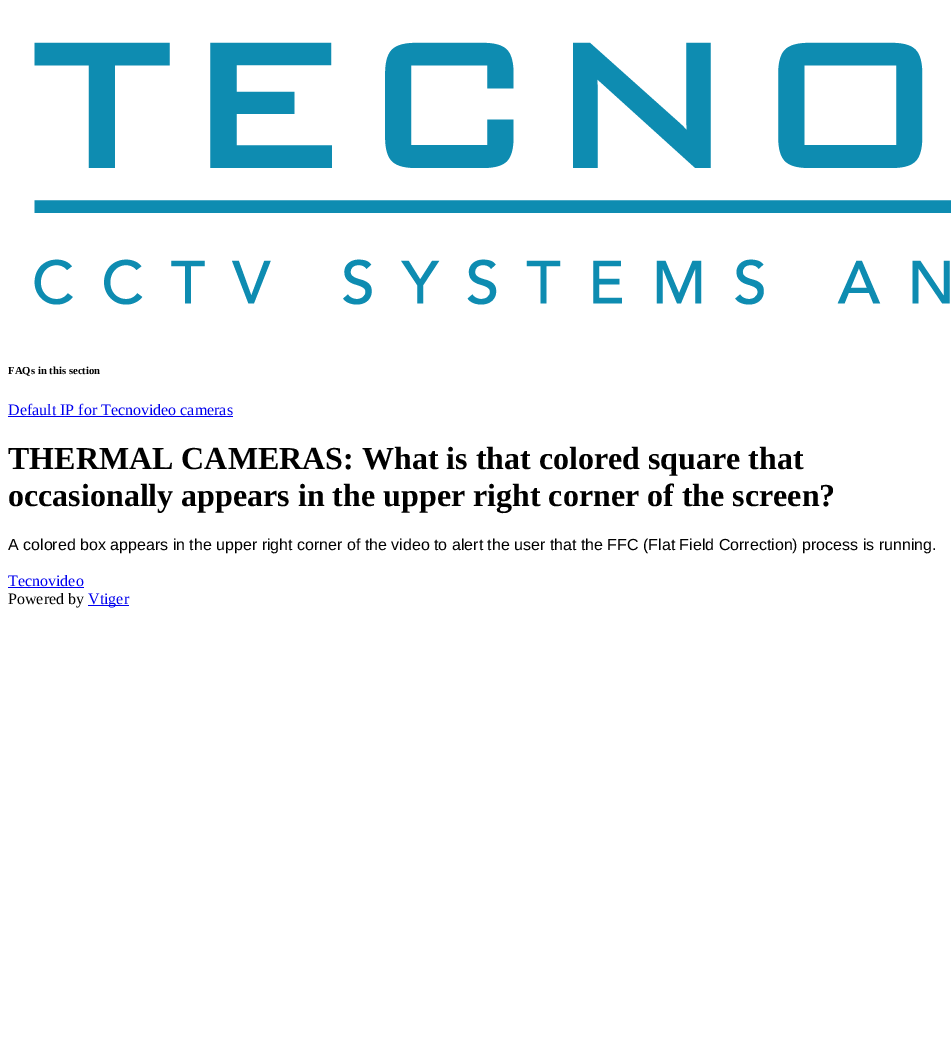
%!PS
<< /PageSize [951 1042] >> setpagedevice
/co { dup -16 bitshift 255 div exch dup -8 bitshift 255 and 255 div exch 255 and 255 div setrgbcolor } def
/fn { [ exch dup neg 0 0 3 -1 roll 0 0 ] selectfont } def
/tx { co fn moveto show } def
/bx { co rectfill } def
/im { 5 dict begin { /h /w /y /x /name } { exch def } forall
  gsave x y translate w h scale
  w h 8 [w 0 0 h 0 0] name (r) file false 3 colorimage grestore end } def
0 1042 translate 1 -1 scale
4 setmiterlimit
0 0 951 1042 16#FFFFFF bx
(media/1.raw) 34 42 917 263 im
8 416 225 1 16#0000EE bx
8 587 76 1 16#0000EE bx
88 605 41 1 16#0000EE bx
(FAQs in this section) 8 374 /LiberationSerif-Bold 10.75 16#000000 tx
(Default IP for Tecnovideo cameras) 8 415 /LiberationSerif-Regular 16 16#0000EE tx
(THERMAL CAMERAS: What is that colored square that) 8 469 /LiberationSerif-Bold 32 16#000000 tx
(occasionally appears in the upper right corner of the screen?) 8 506 /LiberationSerif-Bold 32 16#000000 tx
(A colored box appears in the upper right corner of the video to alert the user that the FFC \(Flat Field Correction\) process is running.) 8 550 /LiberationSans-Regular 16 16#000000 tx
(Tecnovideo) 8 586 /LiberationSerif-Regular 16 16#0000EE tx
(Powered by) 8 604 /LiberationSerif-Regular 16 16#000000 tx
(Vtiger) 88 604 /LiberationSerif-Regular 16 16#0000EE tx
showpage
